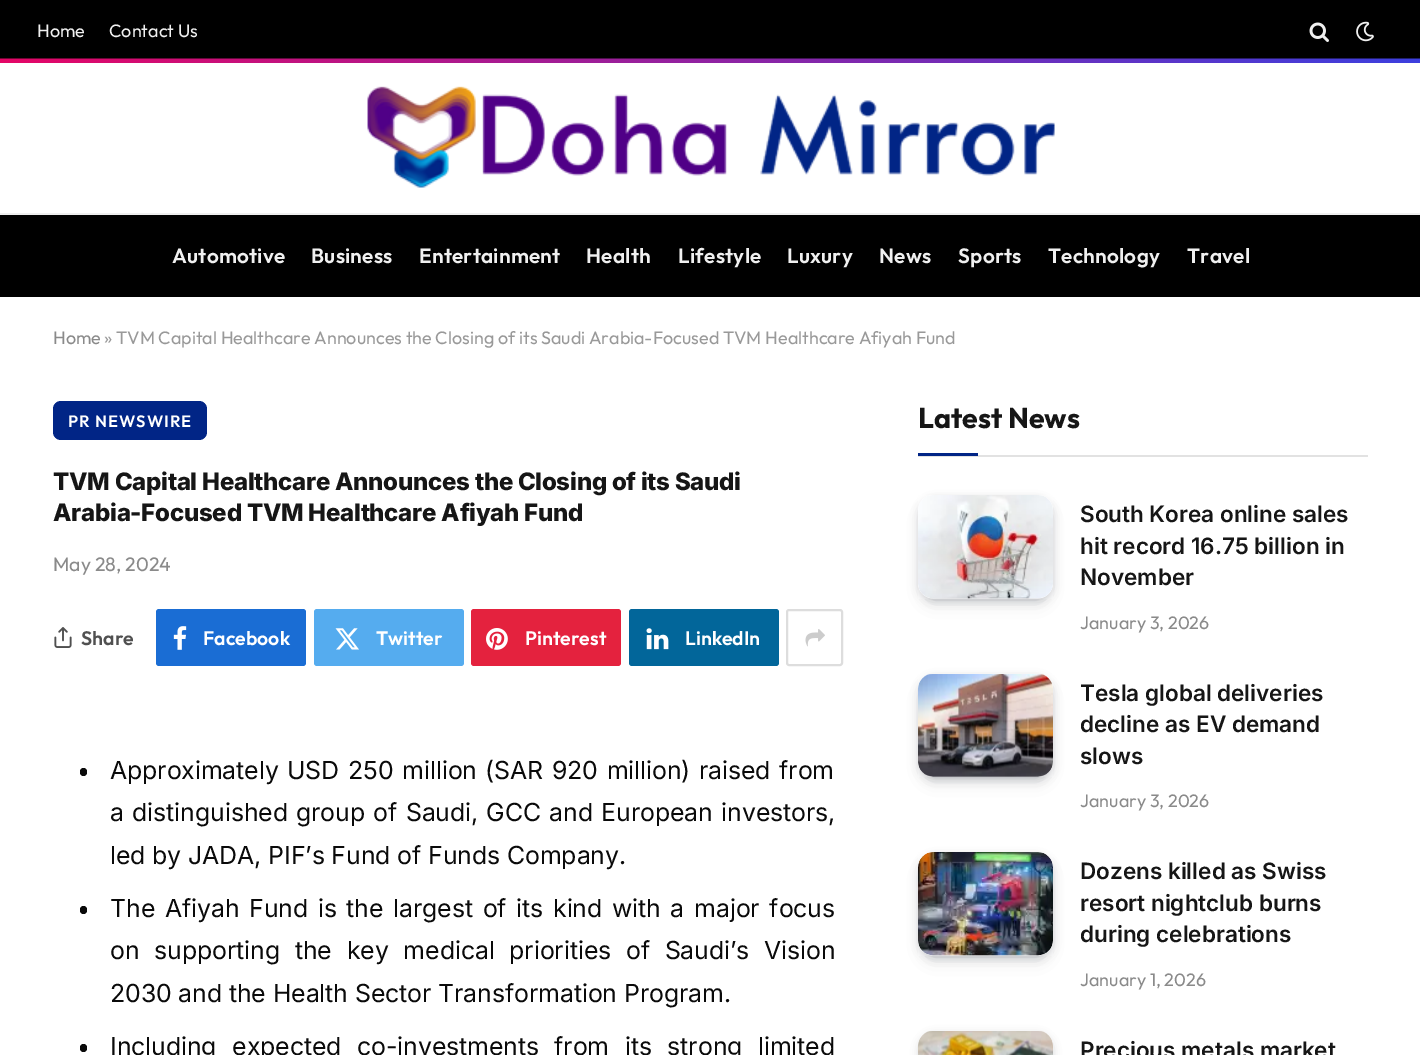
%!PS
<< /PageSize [1420 1055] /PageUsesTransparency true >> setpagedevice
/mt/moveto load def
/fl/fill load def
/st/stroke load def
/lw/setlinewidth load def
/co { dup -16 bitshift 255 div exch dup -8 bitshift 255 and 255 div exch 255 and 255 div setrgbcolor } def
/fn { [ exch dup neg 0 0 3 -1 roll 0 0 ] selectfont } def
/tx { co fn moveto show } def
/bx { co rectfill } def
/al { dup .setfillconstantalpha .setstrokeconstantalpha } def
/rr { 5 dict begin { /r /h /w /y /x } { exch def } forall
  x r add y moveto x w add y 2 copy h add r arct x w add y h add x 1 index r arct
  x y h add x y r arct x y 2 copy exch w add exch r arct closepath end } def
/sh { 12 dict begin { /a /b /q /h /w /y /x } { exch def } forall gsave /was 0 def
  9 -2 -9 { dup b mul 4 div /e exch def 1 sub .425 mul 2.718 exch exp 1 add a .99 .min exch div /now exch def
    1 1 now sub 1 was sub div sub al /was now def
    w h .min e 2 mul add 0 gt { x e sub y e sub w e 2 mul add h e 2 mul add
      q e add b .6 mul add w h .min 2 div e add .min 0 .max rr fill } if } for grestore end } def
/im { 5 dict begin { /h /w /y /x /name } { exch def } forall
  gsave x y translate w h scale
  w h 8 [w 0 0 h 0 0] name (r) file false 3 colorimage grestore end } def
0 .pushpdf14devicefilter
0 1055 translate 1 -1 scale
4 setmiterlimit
0 0 1420 1055 16#FFFFFF bx
0 0 1420 59 16#000000 bx
(media/1.raw) 0 58 1420 5 im
(media/2.raw) 1309 22 20 20 im
(media/3.raw) 1356 21 18 21 im
0 213 1420 2 16#EFEFEF bx
(media/4.raw) 367 86 688 102 im
0 215 1420 82 16#000000 bx
16#012586 co
53 401 154 39 8 rr fl
(media/5.raw) 54 627 18 21 im
16#1A6DD4 co
156 609 150 57 3 rr fl
(media/6.raw) 173 626 14 24 im
16#55ACEF co
314 609 150 57 3 rr fl
(media/7.raw) 335 628 24 22 im
16#E4223E co
471 609 150 57 3 rr fl
(media/8.raw) 486 628 22 22 im
16#02669A co
629 609 150 57 3 rr fl
(media/9.raw) 646 628 23 22 im
16#DDDDDD co
2 lw
787 610 55 55 2 rr st
(media/10.raw) 805 629 20 18 im
16#0A0A0A co
80 768 7 8 3.5 rr fl
80 906 7 8 3.5 rr fl
80 1044 7 8 3.5 rr fl
918 455 450 2 16#E2E2E2 bx
918 453 60 3 16#012586 bx
16#070A19 co
927 513 117 86 6 9 .2 sh
920 500 132 100 14 4.5 .2 sh
(media/11.raw) 918 495 135 104 im
927 692 117 85 6 9 .2 sh
920 678 132 101 14 4.5 .2 sh
(media/12.raw) 918 674 135 103 im
927 870 117 86 6 9 .2 sh
920 857 132 100 14 4.5 .2 sh
(media/13.raw) 918 852 135 104 im
920 1035 132 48 14 4.5 .2 sh
(media/14.raw) 918 1031 135 24 im
(Home) 37 37 /Outfit-Regular 18 16#F0F0F0 tx
(Contact Us) 109 37 /Outfit-Regular 18 16#F0F0F0 tx
/Outfit-SemiBold 20.75 fn
172 263 mt .25 0 (Automotive) ashow
311 263 mt .25 0 (Business) ashow
419 263 mt .25 0 (Entertainment) ashow
586 263 mt .25 0 (Health) ashow
678 263 mt .25 0 (Lifestyle) ashow
787 263 mt .25 0 (Luxury) ashow
879 263 mt .25 0 (News) ashow
958 263 mt .25 0 (Sports) ashow
1048 263 mt .25 0 (Technology) ashow
1187 263 mt .25 0 (Travel) ashow
(Home) 53 344 /Outfit-Regular 18 16#8A8A8A tx
(» TVM Capital Healthcare Announces the Closing of its Saudi Arabia-Focused TVM Healthcare Afiyah Fund) 104 344 /Outfit-Regular 18 16#999999 tx
/Outfit-SemiBold 16.5 fn
16#FFFFFF co
68 427 mt 1 0 (PR NEWSWIRE) ashow
/Inter-ExtraBold 24 fn
16#161616 co
53 490 mt -.25 0 (TVM Capital Healthcare Announces the Closing of its Saudi) ashow
53 521 mt -.25 0 (Arabia-Focused TVM Healthcare Afiyah Fund) ashow
(May 28, 2024) 53 571 /Outfit-Regular 19.5 16#8A8A8A tx
(Share) 81 645 /Outfit-SemiBold 19.5 16#505050 tx
(Facebook) 203 645 /Outfit-SemiBold 19.5 16#FFFFFF tx
(Twitter) 376 645 /Outfit-SemiBold 19.5 16#FFFFFF tx
(Pinterest) 525 645 /Outfit-SemiBold 19.5 16#FFFFFF tx
(LinkedIn) 685 645 /Outfit-SemiBold 19.5 16#FFFFFF tx
/Inter-Regular 24.9 fn
16#0A0A0A co
110 779 mt -.12 0 (Approximately) ashow
287 779 mt 2 0 32 -.12 0 (USD 250 million) awidthshow
485 779 mt -.12 0 (\() ashow
494 779 mt 2 0 32 -.12 0 (SAR 920 million) awidthshow
681 779 mt 2 0 32 -.12 0 (\) raised from) awidthshow
110 821 mt 1.5 0 32 -.12 0 (a distinguished group of Saudi, GCC and European investors,) awidthshow
110 864 mt -.12 0 (led by JADA, PIF’s Fund of Funds Company.) ashow
110 917 mt 2.9 0 32 -.12 0 (The Afiyah Fund is the largest of its kind with a major focus) awidthshow
110 959 mt 8 0 32 -.12 0 (on supporting the key medical priorities of Saudi’s Vision) awidthshow
110 1002 mt -.12 0 (2030 and the Health Sector Transformation Program.) ashow
110 1055 mt 8.75 0 32 -.12 0 (Including expected co-investments from its strong limited) awidthshow
(Latest News) 918 428 /Outfit-Bold 28.5 16#161616 tx
(South Korea online sales) 1080 522 /Inter-SemiBold 22.5 16#161616 tx
(hit record 16.75 billion in) 1080 554 /Inter-SemiBold 22.5 16#161616 tx
(November) 1080 585 /Inter-SemiBold 22.5 16#161616 tx
(January 3, 2026) 1080 629 /Outfit-Regular 18 16#8A8A8A tx
(Tesla global deliveries) 1080 701 /Inter-SemiBold 22.5 16#161616 tx
(decline as EV demand) 1080 732 /Inter-SemiBold 22.5 16#161616 tx
(slows) 1080 764 /Inter-SemiBold 22.5 16#161616 tx
(January 3, 2026) 1080 807 /Outfit-Regular 18 16#8A8A8A tx
(Dozens killed as Swiss) 1080 879 /Inter-SemiBold 22.5 16#161616 tx
(resort nightclub burns) 1080 911 /Inter-SemiBold 22.5 16#161616 tx
(during celebrations) 1080 942 /Inter-SemiBold 22.5 16#161616 tx
(January 1, 2026) 1080 986 /Outfit-Regular 18 16#8A8A8A tx
(Precious metals market) 1080 1058 /Inter-SemiBold 22.5 16#161616 tx
.poppdf14devicefilter showpage
